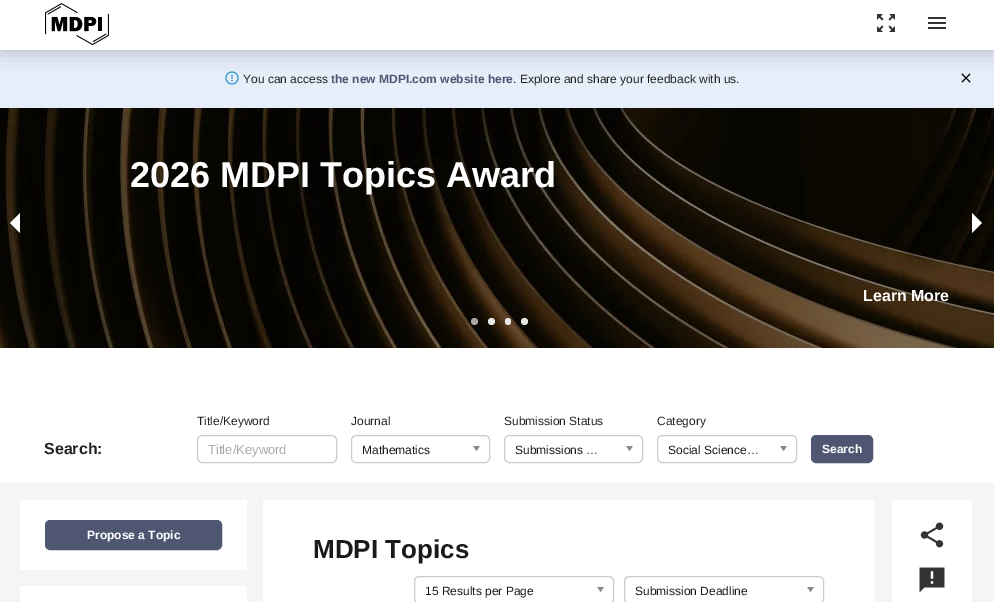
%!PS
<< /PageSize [994 602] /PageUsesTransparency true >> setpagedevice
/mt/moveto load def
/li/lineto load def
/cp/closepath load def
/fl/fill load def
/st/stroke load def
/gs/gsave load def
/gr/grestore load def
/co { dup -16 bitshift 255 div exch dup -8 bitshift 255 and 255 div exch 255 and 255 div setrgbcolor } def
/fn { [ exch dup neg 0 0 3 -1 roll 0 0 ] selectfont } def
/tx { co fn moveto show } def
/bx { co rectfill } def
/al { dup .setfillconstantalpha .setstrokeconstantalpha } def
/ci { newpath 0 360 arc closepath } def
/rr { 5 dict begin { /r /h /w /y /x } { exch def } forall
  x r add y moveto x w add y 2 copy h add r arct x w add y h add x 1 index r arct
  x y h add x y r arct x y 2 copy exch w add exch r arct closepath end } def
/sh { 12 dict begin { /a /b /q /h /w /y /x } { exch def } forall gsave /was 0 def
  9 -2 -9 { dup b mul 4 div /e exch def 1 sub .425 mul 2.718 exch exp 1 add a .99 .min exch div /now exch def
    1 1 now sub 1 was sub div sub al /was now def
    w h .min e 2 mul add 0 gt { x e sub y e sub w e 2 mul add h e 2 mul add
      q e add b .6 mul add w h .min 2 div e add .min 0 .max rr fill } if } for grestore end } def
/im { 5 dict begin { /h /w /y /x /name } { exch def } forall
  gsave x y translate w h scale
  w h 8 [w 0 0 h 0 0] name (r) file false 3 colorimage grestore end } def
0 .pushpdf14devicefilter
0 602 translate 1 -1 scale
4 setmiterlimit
0 0 994 602 16#F5F5F5 bx
0 50 994 58 16#E6EEFA bx
(media/4.raw) 225 71 14 14 im
(media/5.raw) 961 73 10 10 im
16#000000 co
0 0 994 50 0 10 .25 sh
0 0 994 50 16#FFFFFF bx
(media/1.raw) 45 3 64 42 im
(media/2.raw) 877 14 18 18 im
(media/3.raw) 928 17 18 12 im
0 348 994 135 16#FFFFFF bx
(media/6.raw) 0 108 994 240 im
20 213 mt 20 233 li 10 223 li cp fl
972 233 mt 972 213 li 982 223 li cp fl
16#A6A6A6 co
474.5 321.5 3.5 ci fl
16#E6E6E6 co
491.5 321.5 3.5 ci fl
505 318 6 7 3 rr fl
524.5 321.5 3.5 ci fl
16#CCCCCC co
197.5 435.5 139 27 4.5 rr st
351.5 435.5 138 27 4.5 rr st
(media/7.raw) 473 446 7 6 im
504.5 435.5 138 27 4.5 rr st
(media/7.raw) 626 446 7 6 im
657.5 435.5 139 27 4.5 rr st
(media/7.raw) 780 446 7 6 im
16#4F5671 co
811.5 435.5 61 27 4.5 rr gs fl gr
st
20 500 227 70 16#FFFFFF bx
16#4F5671 co
45.5 520.5 176 29 4.5 rr gs fl gr
st
20 586 227 16 16#FFFFFF bx
263 500 611 102 16#FFFFFF bx
16#CCCCCC co
414.5 576.5 199 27 4.5 rr st
(media/7.raw) 597 587 7 6 im
624.5 576.5 199 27 4.5 rr st
(media/7.raw) 807 587 7 6 im
892 500 80 102 16#FFFFFF bx
(media/8.raw) 920 522 24 26 im
(media/9.raw) 919 567 26 26 im
(You can access) 243 83 /LiberationSans-Regular 12 16#222222 tx
(the new MDPI.com website here) 331 83 /LiberationSans-Bold 12 16#4F5671 tx
(. Explore and share your feedback with us.) 513 83 /LiberationSans-Regular 12 16#222222 tx
(2026 MDPI Topics Award) 130 187 /LiberationSans-Bold 36 16#FFFFFF tx
(Learn More) 863 301 /LiberationSans-Bold 16 16#FFFFFF tx
(Search:) 44 454 /LiberationSans-Bold 16 16#222222 tx
(Title/Keyword) 197 425 /LiberationSans-Regular 12 16#222222 tx
(Title/Keyword) 208 454 /LiberationSans-Regular 13 16#AAAAAA tx
(Journal) 351 425 /LiberationSans-Regular 12 16#222222 tx
(Mathematics) 362 454 /LiberationSans-Regular 12 16#1A1A1A tx
(Submission Status) 504 425 /LiberationSans-Regular 12 16#222222 tx
(Submissions …) 515 454 /LiberationSans-Regular 12 16#1A1A1A tx
(Category) 657 425 /LiberationSans-Regular 12 16#222222 tx
(Social Science…) 668 454 /LiberationSans-Regular 12 16#1A1A1A tx
(Search) 822 453 /LiberationSans-Bold 12 16#FFFFFF tx
(Propose a Topic) 87 539 /LiberationSans-Bold 12 16#FFFFFF tx
(MDPI Topics) 313 558 /LiberationSans-Bold 26 16#1A1A1A tx
(15 Results per Page) 425 595 /LiberationSans-Regular 12 16#1A1A1A tx
(Submission Deadline) 635 595 /LiberationSans-Regular 12 16#1A1A1A tx
.poppdf14devicefilter showpage
